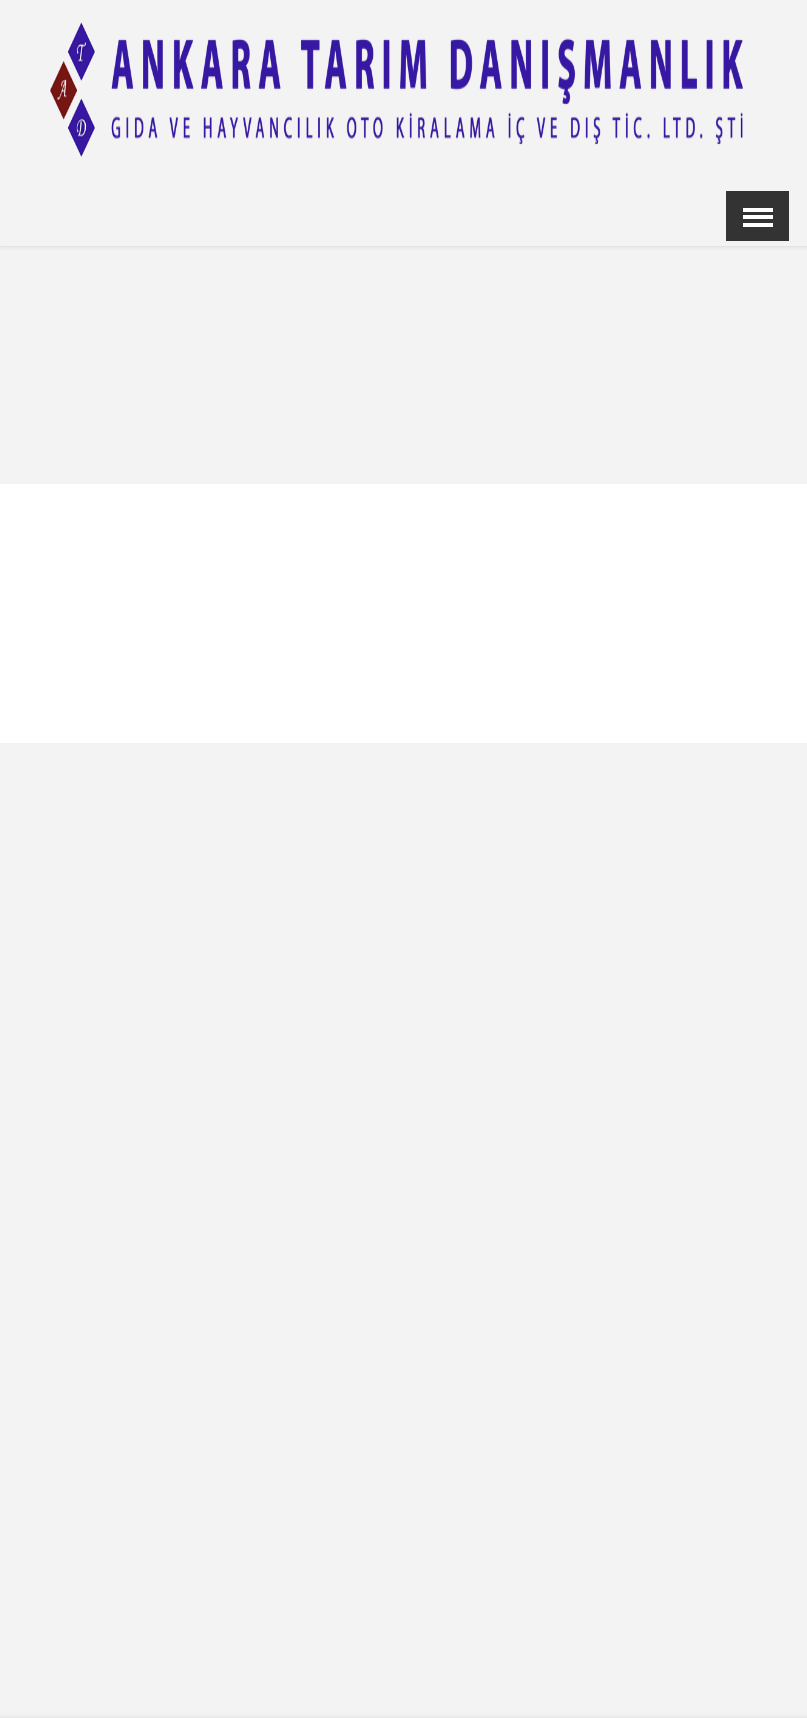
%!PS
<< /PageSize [807 1718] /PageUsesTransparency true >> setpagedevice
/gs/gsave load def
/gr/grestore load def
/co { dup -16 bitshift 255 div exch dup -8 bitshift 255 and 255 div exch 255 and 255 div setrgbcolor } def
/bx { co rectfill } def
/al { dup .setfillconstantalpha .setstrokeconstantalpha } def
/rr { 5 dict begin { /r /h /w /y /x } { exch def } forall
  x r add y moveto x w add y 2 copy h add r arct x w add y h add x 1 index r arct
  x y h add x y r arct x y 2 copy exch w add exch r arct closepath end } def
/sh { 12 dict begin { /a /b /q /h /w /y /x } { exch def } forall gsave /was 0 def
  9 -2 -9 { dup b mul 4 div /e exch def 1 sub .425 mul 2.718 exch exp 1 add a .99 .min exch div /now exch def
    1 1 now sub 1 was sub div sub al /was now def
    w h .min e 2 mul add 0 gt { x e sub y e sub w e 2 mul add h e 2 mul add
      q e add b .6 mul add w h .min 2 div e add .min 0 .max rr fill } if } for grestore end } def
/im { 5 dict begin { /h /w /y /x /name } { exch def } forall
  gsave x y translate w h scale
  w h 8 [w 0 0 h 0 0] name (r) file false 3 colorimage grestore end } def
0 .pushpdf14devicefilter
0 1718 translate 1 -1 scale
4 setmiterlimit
0 0 807 1718 16#F3F3F3 bx
gs
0 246 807 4 rectclip
16#4D4D4D co
1 0 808 246 0 3 .2 sh
gr
(media/1.raw) 49 20 694 138 im
726 191 63 50 16#333333 bx
743 208 30 4 16#FFFFFF bx
743 215 30 4 16#FFFFFF bx
743 223 30 4 16#FFFFFF bx
0 484 807 259 16#FFFFFF bx
16#4D4D4D co
1 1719 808 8 0 3 .2 sh
.poppdf14devicefilter showpage
